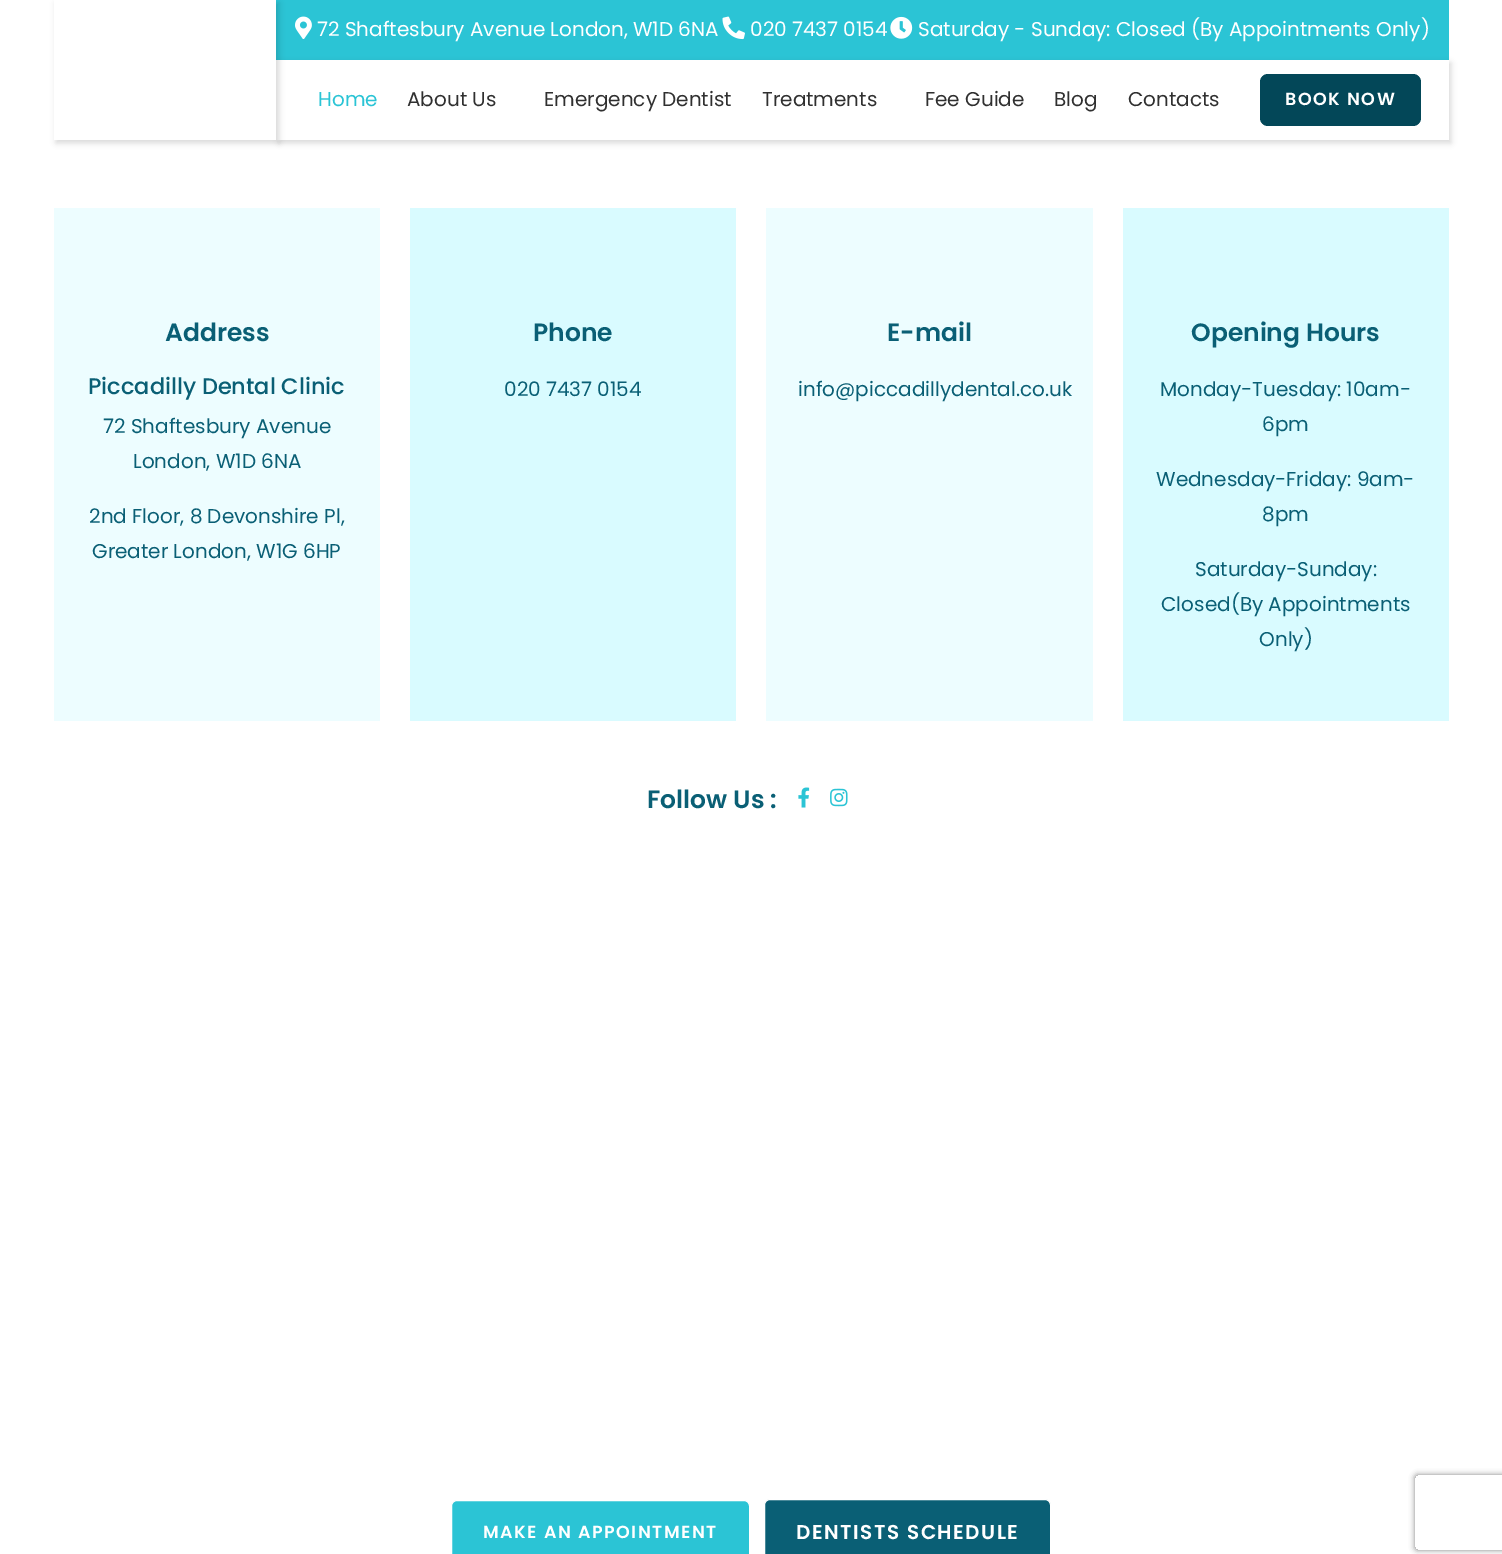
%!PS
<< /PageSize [1502 1554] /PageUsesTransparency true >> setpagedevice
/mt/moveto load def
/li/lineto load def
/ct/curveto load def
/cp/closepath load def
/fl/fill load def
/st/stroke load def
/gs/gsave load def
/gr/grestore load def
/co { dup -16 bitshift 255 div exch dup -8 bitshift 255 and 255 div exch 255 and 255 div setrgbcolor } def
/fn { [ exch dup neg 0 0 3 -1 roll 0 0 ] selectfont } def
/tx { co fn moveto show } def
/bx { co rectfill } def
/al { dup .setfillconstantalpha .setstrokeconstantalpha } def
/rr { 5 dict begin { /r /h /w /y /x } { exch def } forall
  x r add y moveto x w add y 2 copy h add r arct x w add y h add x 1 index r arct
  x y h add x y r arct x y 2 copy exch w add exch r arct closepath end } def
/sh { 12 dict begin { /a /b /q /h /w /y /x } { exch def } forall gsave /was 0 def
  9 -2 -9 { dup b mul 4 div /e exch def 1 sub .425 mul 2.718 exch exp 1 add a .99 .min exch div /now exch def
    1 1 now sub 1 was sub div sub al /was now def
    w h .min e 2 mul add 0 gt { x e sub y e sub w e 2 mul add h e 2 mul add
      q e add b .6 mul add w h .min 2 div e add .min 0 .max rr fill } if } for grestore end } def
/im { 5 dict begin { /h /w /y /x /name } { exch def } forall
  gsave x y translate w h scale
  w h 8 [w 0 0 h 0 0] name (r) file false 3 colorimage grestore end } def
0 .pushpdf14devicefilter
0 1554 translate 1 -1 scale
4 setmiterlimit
0 0 1502 1554 16#FFFFFF bx
276 0 1173 60 16#2BC4D5 bx
16#000000 co
279 63 1172 80 0 3 .15 sh
276 60 1173 80 16#FFFFFF bx
16#000000 co
56 3 223 140 0 3 .15 sh
54 0 222 140 16#FFFFFF bx
(media/1.raw) 295 16 17 23 im
(media/2.raw) 722 16 23 24 im
(media/3.raw) 890 16 23 23 im
16#034758 co
1260 74 161 52 8 rr fl
54 208 326 513 16#EDFDFF bx
410 208 326 513 16#D9FBFF bx
766 208 327 513 16#EDFDFF bx
1123 208 326 513 16#D9FBFF bx
(media/4.raw) 798 787 12 21 im
(media/5.raw) 830 788 18 19 im
16#2BC4D5 co
451.5 1500.5 298 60 5.5 rr gs fl gr
16#FFFFFF co
st
16#0A5F75 co
764.5 1499.5 286 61 5.5 rr gs fl gr
16#FFFFFF co
st
gs
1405 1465 mt 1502 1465 li 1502 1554 li 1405 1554 li cp 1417.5 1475 mt 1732.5 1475 li 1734 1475 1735 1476 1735 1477.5 ct 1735 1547.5 li 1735 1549 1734 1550 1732.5 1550 ct 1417.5 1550 li 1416 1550 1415 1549 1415 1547.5 ct 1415 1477.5 li 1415 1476 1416 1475 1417.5 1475 ct cp eoclip newpath
16#808080 co
1415 1475 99 75 2.5 3 1 sh
gr
(72 Shaftesbury Avenue London, W1D 6NA) 317 36 /Poppins-Regular 20 16#FFFFFF tx
(020 7437 0154) 750 36 /Poppins-Regular 20 16#FFFFFF tx
(Saturday - Sunday: Closed \(By Appointments Only\)) 918 36 /Poppins-Regular 20 16#FFFFFF tx
(Home) 318 106 /Poppins-Regular 20 16#2BC4D5 tx
(About Us) 407 106 /Poppins-Regular 20 16#303030 tx
(Emergency Dentist) 544 106 /Poppins-Regular 20 16#303030 tx
(Treatments) 762 106 /Poppins-Regular 20 16#303030 tx
(Fee Guide) 925 106 /Poppins-Regular 20 16#303030 tx
(Blog) 1054 106 /Poppins-Regular 20 16#303030 tx
(Contacts) 1128 106 /Poppins-Regular 20 16#303030 tx
/Poppins-SemiBold 17.5 fn
16#FFFFFF co
1285 105 mt 1.5 0 (BOOK NOW) ashow
(Address) 165 341 /Poppins-SemiBold 25 16#0A5F75 tx
(Piccadilly Dental Clinic) 88 394 /Poppins-Medium 22.5 16#0A5F75 tx
(72 Shaftesbury Avenue) 103 433 /Poppins-Regular 20 16#0A5F75 tx
(London, W1D 6NA) 133 468 /Poppins-Regular 20 16#0A5F75 tx
(2nd Floor, 8 Devonshire Pl,) 89 523 /Poppins-Regular 20 16#0A5F75 tx
(Greater London, W1G 6HP) 92 558 /Poppins-Regular 20 16#0A5F75 tx
(Phone) 533 341 /Poppins-SemiBold 25 16#0A5F75 tx
(020 7437 0154) 504 396 /Poppins-Regular 20 16#0A5F75 tx
(E-mail) 887 341 /Poppins-SemiBold 25 16#0A5F75 tx
(info@piccadillydental.co.uk) 798 396 /Poppins-Regular 20 16#0A5F75 tx
(Opening Hours) 1191 341 /Poppins-SemiBold 25 16#0A5F75 tx
(Monday-Tuesday: 10am-) 1160 396 /Poppins-Regular 20 16#0A5F75 tx
(6pm) 1262 431 /Poppins-Regular 20 16#0A5F75 tx
(Wednesday-Friday: 9am-) 1156 486 /Poppins-Regular 20 16#0A5F75 tx
(8pm) 1262 521 /Poppins-Regular 20 16#0A5F75 tx
(Saturday-Sunday:) 1195 576 /Poppins-Regular 20 16#0A5F75 tx
(Closed\(By Appointments) 1161 611 /Poppins-Regular 20 16#0A5F75 tx
(Only\)) 1259 646 /Poppins-Regular 20 16#0A5F75 tx
(Follow Us :) 647 808 /Poppins-SemiBold 25 16#0A5F75 tx
/Poppins-SemiBold 17.5 fn
16#FFFFFF co
483 1538 mt 1.5 0 (MAKE AN APPOINTMENT) ashow
/Poppins-SemiBold 20 fn
796 1539 mt 1.5 0 (DENTISTS SCHEDULE) ashow
.poppdf14devicefilter showpage
